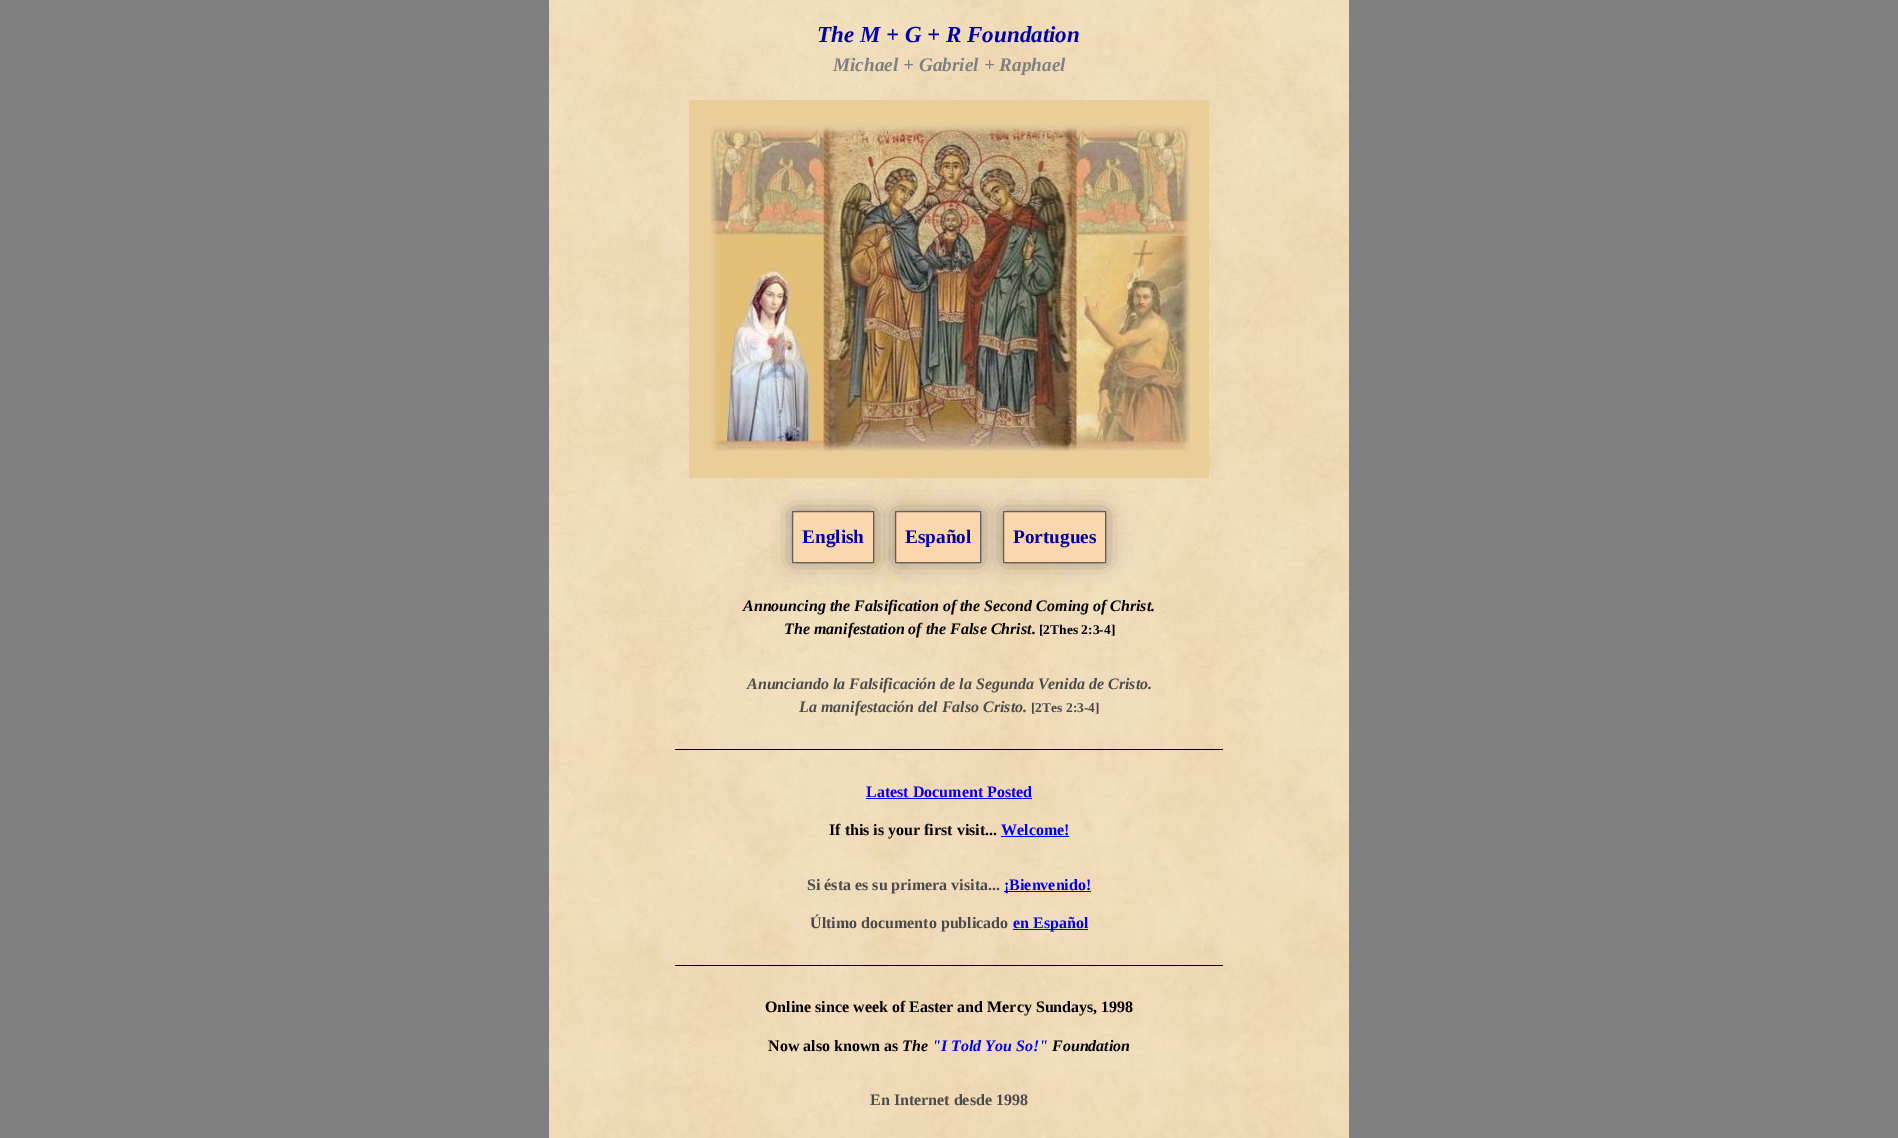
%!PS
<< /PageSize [1898 1138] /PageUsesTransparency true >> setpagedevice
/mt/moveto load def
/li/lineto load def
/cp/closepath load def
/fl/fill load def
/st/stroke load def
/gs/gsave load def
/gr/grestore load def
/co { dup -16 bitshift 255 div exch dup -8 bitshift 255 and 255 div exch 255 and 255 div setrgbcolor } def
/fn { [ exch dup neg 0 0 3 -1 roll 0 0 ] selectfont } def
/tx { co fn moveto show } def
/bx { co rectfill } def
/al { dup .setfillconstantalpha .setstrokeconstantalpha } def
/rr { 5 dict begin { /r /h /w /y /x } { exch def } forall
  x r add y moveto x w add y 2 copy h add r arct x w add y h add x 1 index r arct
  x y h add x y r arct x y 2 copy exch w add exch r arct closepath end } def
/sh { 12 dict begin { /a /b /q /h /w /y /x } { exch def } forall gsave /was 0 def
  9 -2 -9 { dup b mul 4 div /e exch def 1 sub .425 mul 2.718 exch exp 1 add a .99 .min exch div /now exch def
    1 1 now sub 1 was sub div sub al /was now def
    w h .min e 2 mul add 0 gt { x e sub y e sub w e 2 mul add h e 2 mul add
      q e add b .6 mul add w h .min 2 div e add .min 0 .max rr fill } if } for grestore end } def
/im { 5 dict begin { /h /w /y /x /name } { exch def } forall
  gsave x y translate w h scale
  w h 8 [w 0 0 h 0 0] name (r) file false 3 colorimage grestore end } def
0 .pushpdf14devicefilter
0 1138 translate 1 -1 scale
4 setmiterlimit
0 0 1898 1138 16#808080 bx
(media/1.raw) 549 0 800 1138 im
(media/2.raw) 689 100 520 378 im
16#000000 co
793 512 80 50 0 10 .4 sh
16#FAD7AC co
792.5 511.5 mt 873.5 511.5 li 873.5 562.5 li 792.5 562.5 li cp gs fl gr
16#606060 co
st
16#000000 co
896 512 84 50 0 10 .4 sh
16#FAD7AC co
895.5 511.5 mt 980.5 511.5 li 980.5 562.5 li 895.5 562.5 li cp gs fl gr
16#606060 co
st
16#000000 co
1004 512 101 50 0 10 .4 sh
16#FAD7AC co
1003.5 511.5 mt 1105.5 511.5 li 1105.5 562.5 li 1003.5 562.5 li cp gs fl gr
16#606060 co
st
675 749 548 1 16#000000 bx
866 798 166 1 16#0000EE bx
1001 836 68 1 16#0000EE bx
1004 891 87 1 16#0000EE bx
1013 929 75 1 16#0000EE bx
675 965 548 1 16#000000 bx
(The M + G + R Foundation) 817 42 /LiberationSerif-BoldItalic 23 16#0000AA tx
(Michael + Gabriel + Raphael) 833 71 /LiberationSerif-BoldItalic 19.25 16#808080 tx
(English) 802 543 /LiberationSerif-Bold 19.25 16#0000A0 tx
(Español) 905 543 /LiberationSerif-Bold 19.25 16#0000A0 tx
(Portugues) 1013 543 /LiberationSerif-Bold 19.25 16#0000A0 tx
(Announcing the Falsification of the Second Coming of Christ.) 743 611 /LiberationSerif-BoldItalic 16 16#000000 tx
(The manifestation of the False Christ.) 784 634 /LiberationSerif-BoldItalic 16 16#000000 tx
([2Thes 2:3-4]) 1039 634 /LiberationSerif-Bold 13.5 16#000000 tx
(Anunciando la Falsificación de la Segunda Venida de Cristo.) 747 689 /LiberationSerif-BoldItalic 16 16#4A4A4A tx
(La manifestación del Falso Cristo.) 799 712 /LiberationSerif-BoldItalic 16 16#4A4A4A tx
([2Tes 2:3-4]) 1031 712 /LiberationSerif-Bold 13.5 16#4A4A4A tx
(Latest Document Posted) 866 797 /LiberationSerif-Bold 16 16#0000EE tx
(If this is your first visit...) 829 835 /LiberationSerif-Bold 16 16#000000 tx
(Welcome!) 1001 835 /LiberationSerif-Bold 16 16#0000EE tx
(Si ésta es su primera visita...) 807 890 /LiberationSerif-Bold 16 16#4A4A4A tx
(¡Bienvenido!) 1004 890 /LiberationSerif-Bold 16 16#0000EE tx
(Último documento publicado) 810 928 /LiberationSerif-Bold 16 16#4A4A4A tx
(en Español) 1013 928 /LiberationSerif-Bold 16 16#0000EE tx
(Online since week of Easter and Mercy Sundays, 1998) 765 1012 /LiberationSerif-Bold 16 16#000000 tx
(Now also known as) 768 1051 /LiberationSerif-Bold 16 16#000000 tx
(The) 902 1051 /LiberationSerif-BoldItalic 16 16#000000 tx
("I Told You So!") 932 1051 /LiberationSerif-BoldItalic 16 16#0000EE tx
(Foundation) 1052 1051 /LiberationSerif-BoldItalic 16 16#000000 tx
(En Internet desde 1998) 870 1105 /LiberationSerif-Bold 16 16#4A4A4A tx
.poppdf14devicefilter showpage
